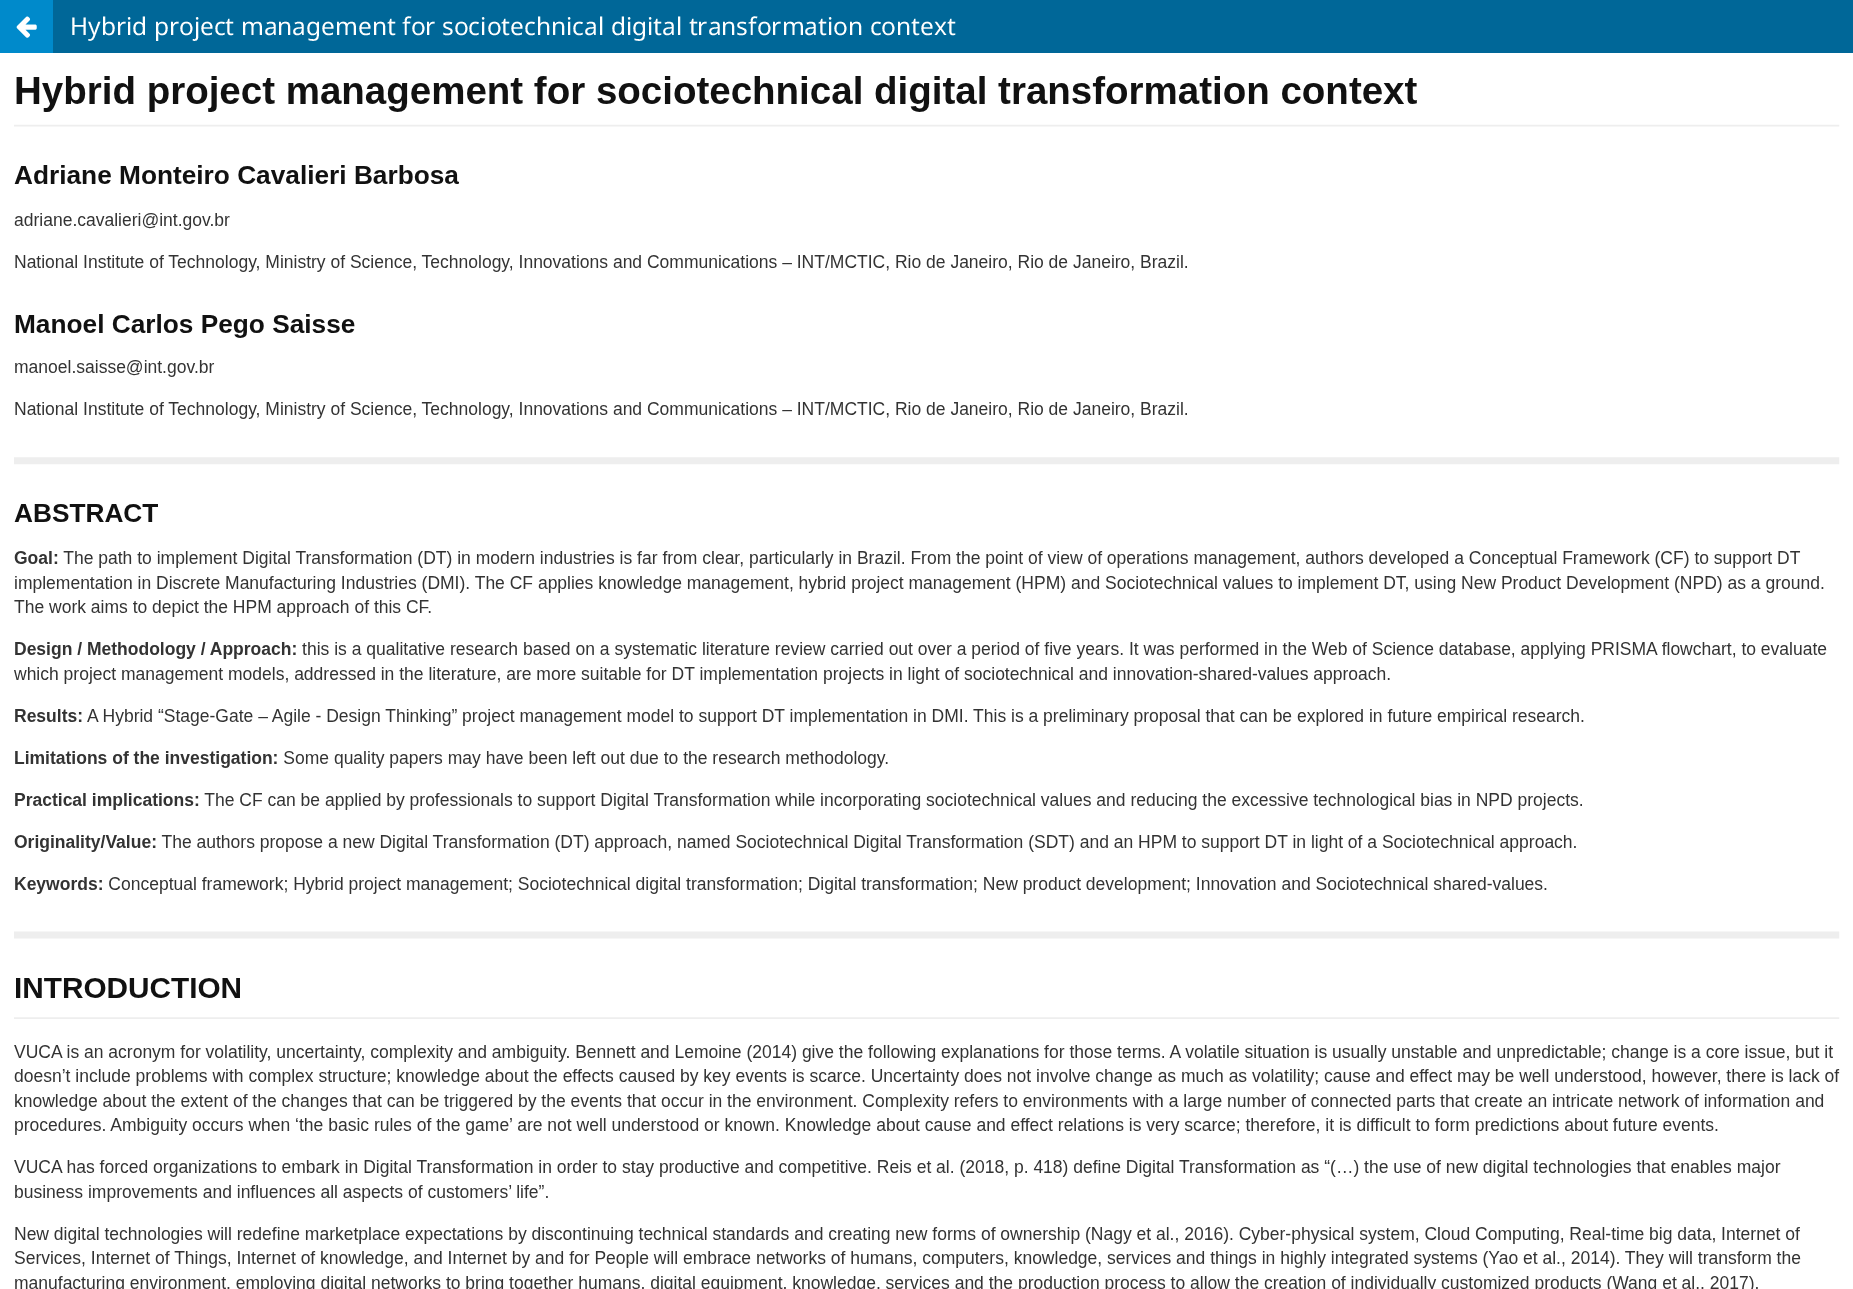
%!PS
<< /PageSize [1853 1289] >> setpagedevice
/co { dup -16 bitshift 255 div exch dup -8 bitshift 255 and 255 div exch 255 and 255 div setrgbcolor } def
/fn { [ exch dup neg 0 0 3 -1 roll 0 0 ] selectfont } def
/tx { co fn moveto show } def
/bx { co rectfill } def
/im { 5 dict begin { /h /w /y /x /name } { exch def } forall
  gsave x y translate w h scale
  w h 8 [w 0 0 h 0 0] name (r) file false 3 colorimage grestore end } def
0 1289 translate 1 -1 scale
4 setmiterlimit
0 0 1853 1289 16#FFFFFF bx
53 0 1800 53 16#006798 bx
0 0 53 53 16#008ACB bx
(media/1.raw) 16 16 21 22 im
(media/2.raw) 14 76 1826 1213 im
(Hybrid project management for sociotechnical digital transformation context) 70 35 /NotoSans-Regular 24.5 16#FFFFFF tx
showpage
